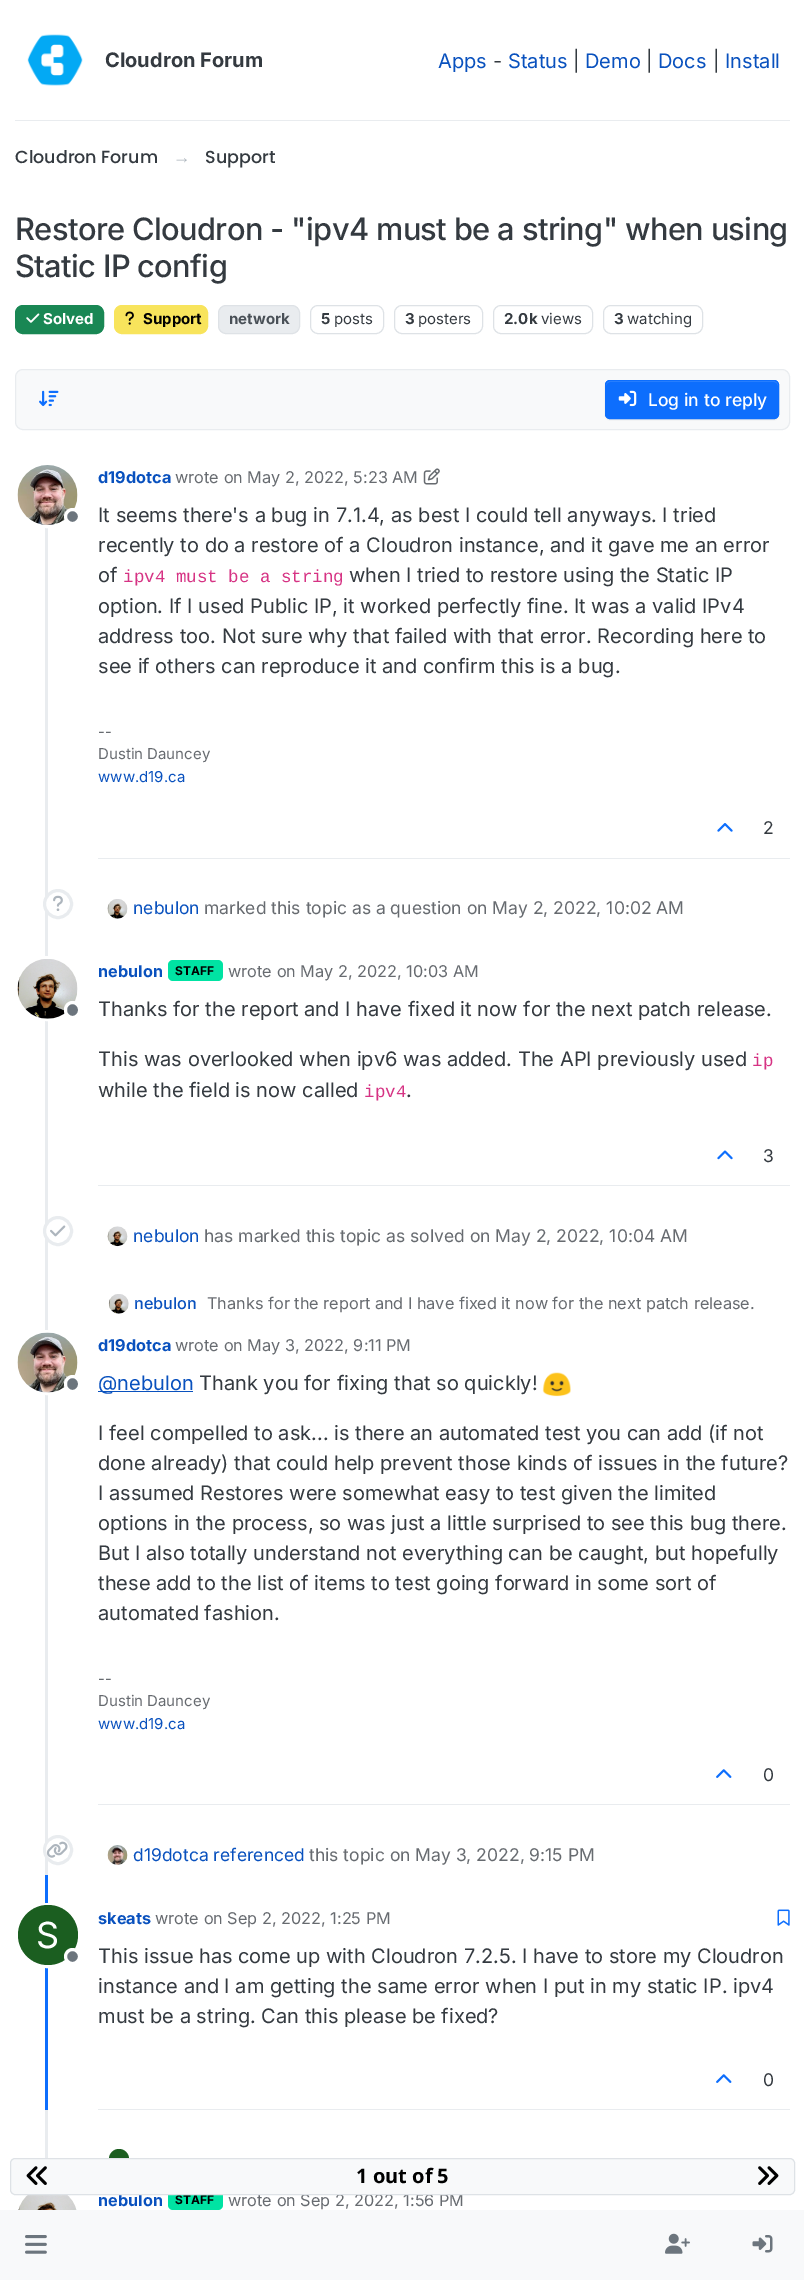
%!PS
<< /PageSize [804 2280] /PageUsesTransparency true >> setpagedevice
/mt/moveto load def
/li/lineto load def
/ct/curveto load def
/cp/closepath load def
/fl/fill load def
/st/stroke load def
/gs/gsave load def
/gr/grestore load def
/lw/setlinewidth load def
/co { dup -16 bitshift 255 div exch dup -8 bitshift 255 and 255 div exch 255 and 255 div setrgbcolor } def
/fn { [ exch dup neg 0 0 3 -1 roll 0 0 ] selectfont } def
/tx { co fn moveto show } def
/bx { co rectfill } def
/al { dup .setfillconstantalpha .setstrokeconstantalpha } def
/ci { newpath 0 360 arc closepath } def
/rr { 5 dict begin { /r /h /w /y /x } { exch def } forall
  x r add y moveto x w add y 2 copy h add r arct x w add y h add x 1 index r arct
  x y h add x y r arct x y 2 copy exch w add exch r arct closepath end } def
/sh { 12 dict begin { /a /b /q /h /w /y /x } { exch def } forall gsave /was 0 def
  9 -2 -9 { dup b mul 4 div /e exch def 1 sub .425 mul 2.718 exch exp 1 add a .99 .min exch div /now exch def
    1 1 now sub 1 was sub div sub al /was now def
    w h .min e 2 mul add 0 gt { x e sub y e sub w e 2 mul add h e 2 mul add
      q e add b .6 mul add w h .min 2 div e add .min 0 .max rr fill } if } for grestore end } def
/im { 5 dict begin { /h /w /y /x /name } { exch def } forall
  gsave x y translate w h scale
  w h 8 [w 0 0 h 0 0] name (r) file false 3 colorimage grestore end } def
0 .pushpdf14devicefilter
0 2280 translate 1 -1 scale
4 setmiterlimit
0 0 804 2280 16#FFFFFF bx
15 120 775 1 16#E9ECEF bx
(media/1.raw) 27 34 56 52 im
16#198754 co
15.5 305.5 88 28 7.5 rr gs fl gr
st
(media/2.raw) 26 313 14 10 im
16#F8E45C co
114.5 305.5 93 28 7.5 rr gs fl gr
st
(media/3.raw) 125 311 9 14 im
16#E9ECEF co
218.5 305.5 81 28 7.5 rr gs fl gr
16#DEE2E6 co
st
310.5 305.5 73 28 7.5 rr st
394.5 305.5 88 28 7.5 rr st
493.5 305.5 99 28 7.5 rr st
603.5 305.5 99 28 7.5 rr st
16#F8F9FA co
15.5 369.5 774 60 7.5 rr gs fl gr
16#E9ECEF co
st
(media/4.raw) 39 390 20 17 im
16#000000 co
605 381 174 39 5 .5 .07 sh
16#0D6EFD co
605 380 174 39 5 rr fl
16#3184FD co
610 382 mt 774 382 li 776 382 778 384 778 386 ct 778 385 li 778 383 776 381 774 381 ct 610 381 li 608 381 606 383 606 385 ct 606 386 li 606 384 608 382 610 382 ct cp fl
16#0D6EFD co
605.5 380.5 173 38 4.5 rr st
(media/5.raw) 618 390 19 17 im
45 524 3 1351 16#E9ECEF bx
16#FFFFFF co
3 lw
47.5 495.5 31 ci st
(media/6.raw) 17 465 61 60 im
16#6C757D co
72.5 516.5 7 ci gs fl gr
16#FFFFFF co
st
(media/7.raw) 423 468 17 17 im
98 858 692 1 16#E9ECEF bx
(media/8.raw) 717 823 16 9 im
16#FFFFFF co
58 904 13.5 ci gs fl gr
16#E9ECEF co
st
(media/9.raw) 53 895 10 16 im
(media/10.raw) 107 899 21 20 im
16#FFFFFF co
47.5 988.5 31 ci st
(media/11.raw) 17 959 61 60 im
16#6C757D co
65.5 1002.5 14 15 7 rr gs fl gr
16#FFFFFF co
st
16#00E3A3 co
168 960 55 21 5 rr fl
98 1185 692 1 16#E9ECEF bx
(media/12.raw) 717 1150 16 10 im
16#FFFFFF co
58 1231 13.5 ci gs fl gr
16#E9ECEF co
st
(media/13.raw) 50 1225 16 12 im
(media/14.raw) 107 1226 21 21 im
(media/15.raw) 108 1294 21 20 im
16#FFFFFF co
47.5 1362.5 31 ci st
(media/16.raw) 17 1332 61 61 im
16#6C757D co
65.5 1376.5 14 15 7 rr gs fl gr
16#FFFFFF co
st
98 1391 95 1 16#0951BE bx
(media/17.raw) 542 1372 29 25 im
98 1804 692 1 16#E9ECEF bx
(media/18.raw) 716 1769 16 9 im
16#FFFFFF co
58 1850 13.5 ci gs fl gr
16#E9ECEF co
st
(media/19.raw) 46 1841 22 17 im
(media/20.raw) 107 1845 21 20 im
45 1875 3 235 16#0D6EFD bx
16#FFFFFF co
47.5 1935.5 31 ci st
16#1B5E20 co
48 1935 30 ci fl
16#6C757D co
72.5 1956.5 7 ci gs fl gr
16#FFFFFF co
st
(media/21.raw) 777 1909 13 17 im
98 2109 692 1 16#E9ECEF bx
(media/18.raw) 716 2074 16 9 im
45 2110 3 48 16#E9ECEF bx
16#1B5E20 co
119 2159 10 ci fl
(media/22.raw) 18 2195 59 15 im
16#00E3A3 co
168 2189 55 21 5 rr fl
0 2210 804 70 16#F8F9FA bx
(media/25.raw) 25 2235 22 19 im
(media/26.raw) 665 2233 25 21 im
(media/27.raw) 752 2235 21 18 im
(Cloudron Forum) 105 67 /Inter-Bold 20 16#343A40 tx
(Apps) 438 68 /Inter-Regular 20 16#0951BE tx
(-) 493 68 /Inter-Regular 20 16#343A40 tx
(Status) 508 68 /Inter-Regular 20 16#0951BE tx
(|) 573 68 /Inter-Regular 20 16#343A40 tx
(Demo) 585 68 /Inter-Regular 20 16#0951BE tx
(|) 646 68 /Inter-Regular 20 16#343A40 tx
(Docs) 658 68 /Inter-Regular 20 16#0951BE tx
(|) 713 68 /Inter-Regular 20 16#343A40 tx
(Install) 725 68 /Inter-Regular 20 16#0951BE tx
(Cloudron Forum) 15 163 /Poppins-Medium 17.5 16#343A40 tx
(→) 173 163 /LiberationSans-Regular 17.5 16#ADB5BD tx
(Support) 205 163 /Poppins-Medium 17.5 16#343A40 tx
/Inter-Medium 30.8 fn
15 240 mt -.62 0 (Restore Cloudron - "ipv4 must be a string" when using) ashow
15 277 mt -.62 0 (Static IP config) ashow
(Solved) 43 324 /Inter-Bold 15 16#FFFFFF tx
(Support) 143 324 /Inter-Bold 15 16#000000 tx
(network) 229 324 /Inter-Bold 15 16#495057 tx
(5) 321 324 /Inter-Bold 15 16#343A40 tx
(posts) 334 324 /Inter-Regular 15 16#343A40 tx
(3) 405 324 /Inter-Bold 15 16#343A40 tx
(posters) 418 324 /Inter-Regular 15 16#343A40 tx
(2.0k) 504 324 /Inter-Bold 15 16#343A40 tx
(views) 541 324 /Inter-Regular 15 16#343A40 tx
(3) 614 324 /Inter-Bold 15 16#343A40 tx
(watching) 627 324 /Inter-Regular 15 16#343A40 tx
(Log in to reply) 648 406 /Inter-Medium 17.5 16#FFFFFF tx
(d19dotca) 98 483 /Inter-Bold 16.25 16#0951BE tx
(wrote on May 2, 2022, 5:23 AM) 175 483 /Inter-Regular 16.25 16#676B70 tx
(It seems there's a bug in 7.1.4, as best I could tell anyways. I tried) 98 522 /Inter-Regular 20 16#343A40 tx
(recently to do a restore of a Cloudron instance, and it gave me an error) 98 552 /Inter-Regular 20 16#343A40 tx
(of) 98 582 /Inter-Regular 20 16#343A40 tx
(ipv4 must be a string) 123 582 /LiberationMono-Regular 17.5 16#D63384 tx
(when I tried to restore using the Static IP) 349 582 /Inter-Regular 20 16#343A40 tx
(option. If I used Public IP, it worked perfectly fine. It was a valid IPv4) 98 613 /Inter-Regular 20 16#343A40 tx
(address too. Not sure why that failed with that error. Recording here to) 98 643 /Inter-Regular 20 16#343A40 tx
(see if others can reproduce it and confirm this is a bug.) 98 673 /Inter-Regular 20 16#343A40 tx
(--) 98 737 /Inter-Regular 15 16#676B70 tx
(Dustin Dauncey) 98 759 /Inter-Regular 15 16#676B70 tx
(www.d19.ca) 98 782 /Inter-Regular 15 16#0951BE tx
(2) 763 834 /Inter-Regular 17.5 16#343A40 tx
(nebulon) 133 914 /Inter-Regular 17.5 16#0951BE tx
(marked this topic as a question on May 2, 2022, 10:02 AM) 204 914 /Inter-Regular 17.5 16#676B70 tx
(nebulon) 98 977 /Inter-Bold 16.25 16#0951BE tx
(STAFF) 175 975 /Inter-Bold 12 16#000000 tx
(wrote on May 2, 2022, 10:03 AM) 228 977 /Inter-Regular 16.25 16#676B70 tx
(Thanks for the report and I have fixed it now for the next patch release.) 98 1016 /Inter-Regular 20 16#343A40 tx
(This was overlooked when ipv6 was added. The API previously used) 98 1066 /Inter-Regular 20 16#343A40 tx
(ip) 752 1066 /LiberationMono-Regular 17.5 16#D63384 tx
(while the field is now called) 98 1097 /Inter-Regular 20 16#343A40 tx
(ipv4) 364 1097 /LiberationMono-Regular 17.5 16#D63384 tx
(.) 406 1097 /Inter-Regular 20 16#343A40 tx
(3) 763 1162 /Inter-Regular 17.5 16#343A40 tx
(nebulon) 133 1242 /Inter-Regular 17.5 16#0951BE tx
(has marked this topic as solved on May 2, 2022, 10:04 AM) 204 1242 /Inter-Regular 17.5 16#676B70 tx
(nebulon) 134 1309 /Inter-Medium 16.25 16#0951BE tx
(Thanks for the report and I have fixed it now for the next patch release.) 207 1309 /Inter-Regular 16.25 16#676B70 tx
(d19dotca) 98 1351 /Inter-Bold 16.25 16#0951BE tx
(wrote on May 3, 2022, 9:11 PM) 175 1351 /Inter-Regular 16.25 16#676B70 tx
(@nebulon) 98 1390 /Inter-Regular 20 16#0951BE tx
(Thank you for fixing that so quickly!) 199 1390 /Inter-Regular 20 16#343A40 tx
(I feel compelled to ask... is there an automated test you can add \(if not) 98 1440 /Inter-Regular 20 16#343A40 tx
(done already\) that could help prevent those kinds of issues in the future?) 98 1470 /Inter-Regular 20 16#343A40 tx
(I assumed Restores were somewhat easy to test given the limited) 98 1500 /Inter-Regular 20 16#343A40 tx
(options in the process, so was just a little surprised to see this bug there.) 98 1530 /Inter-Regular 20 16#343A40 tx
(But I also totally understand not everything can be caught, but hopefully) 98 1560 /Inter-Regular 20 16#343A40 tx
(these add to the list of items to test going forward in some sort of) 98 1590 /Inter-Regular 20 16#343A40 tx
(automated fashion.) 98 1620 /Inter-Regular 20 16#343A40 tx
(--) 98 1684 /Inter-Regular 15 16#676B70 tx
(Dustin Dauncey) 98 1706 /Inter-Regular 15 16#676B70 tx
(www.d19.ca) 98 1729 /Inter-Regular 15 16#0951BE tx
(0) 763 1781 /Inter-Regular 17.5 16#343A40 tx
(d19dotca referenced) 133 1861 /Inter-Regular 17.5 16#0951BE tx
(this topic on May 3, 2022, 9:15 PM) 309 1861 /Inter-Regular 17.5 16#676B70 tx
(S) 36 1948 /Inter-Regular 36 16#FFFFFF tx
(skeats) 98 1924 /Inter-Bold 16.25 16#0951BE tx
(wrote on Sep 2, 2022, 1:25 PM) 155 1924 /Inter-Regular 16.25 16#676B70 tx
(This issue has come up with Cloudron 7.2.5. I have to store my Cloudron) 98 1963 /Inter-Regular 20 16#343A40 tx
(instance and I am getting the same error when I put in my static IP. ipv4) 98 1993 /Inter-Regular 20 16#343A40 tx
(must be a string. Can this please be fixed?) 98 2023 /Inter-Regular 20 16#343A40 tx
(0) 763 2086 /Inter-Regular 17.5 16#343A40 tx
(nebulon) 98 2206 /Inter-Bold 16.25 16#0951BE tx
(STAFF) 175 2204 /Inter-Bold 12 16#000000 tx
(wrote on Sep 2, 2022, 1:56 PM) 228 2206 /Inter-Regular 16.25 16#676B70 tx
16#F8F9FA co
10.5 2158.5 784 36 4.5 rr gs fl gr
16#DEE2E6 co
1 lw
st
(media/23.raw) 26 2166 21 19 im
(1 out of 5) 356 2183 /NotoSans-Bold 20 16#000000 tx
(media/24.raw) 758 2166 21 19 im
.poppdf14devicefilter showpage
